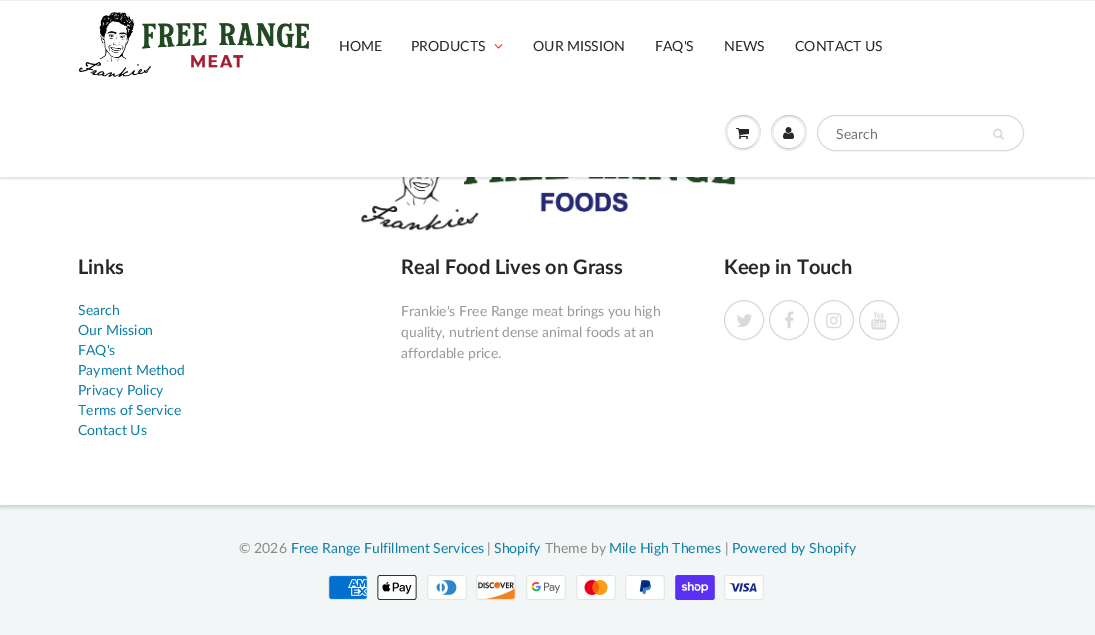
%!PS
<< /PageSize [1095 635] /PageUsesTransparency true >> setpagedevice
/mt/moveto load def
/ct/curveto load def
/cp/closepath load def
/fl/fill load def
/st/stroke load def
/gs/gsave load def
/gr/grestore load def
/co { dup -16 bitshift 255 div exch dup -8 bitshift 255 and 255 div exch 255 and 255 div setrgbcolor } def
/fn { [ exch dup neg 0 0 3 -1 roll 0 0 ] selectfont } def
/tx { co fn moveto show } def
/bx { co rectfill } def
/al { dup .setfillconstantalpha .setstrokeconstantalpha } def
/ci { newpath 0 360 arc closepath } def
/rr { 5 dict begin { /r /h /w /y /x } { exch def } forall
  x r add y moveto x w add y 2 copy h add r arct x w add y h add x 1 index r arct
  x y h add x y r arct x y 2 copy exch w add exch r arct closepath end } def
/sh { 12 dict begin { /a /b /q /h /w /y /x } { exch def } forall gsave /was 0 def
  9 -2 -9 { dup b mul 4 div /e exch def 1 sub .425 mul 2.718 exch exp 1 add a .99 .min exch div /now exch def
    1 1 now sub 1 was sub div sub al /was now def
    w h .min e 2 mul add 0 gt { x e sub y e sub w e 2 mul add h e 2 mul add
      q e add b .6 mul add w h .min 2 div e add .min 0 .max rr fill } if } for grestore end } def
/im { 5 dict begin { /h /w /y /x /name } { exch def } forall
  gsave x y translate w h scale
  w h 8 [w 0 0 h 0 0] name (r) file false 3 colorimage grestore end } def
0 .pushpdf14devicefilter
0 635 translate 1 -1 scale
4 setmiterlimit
0 0 1095 635 16#FFFFFF bx
0 505 1095 130 16#F3F6F6 bx
gs
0 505 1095 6 rectclip
16#D1D7D7 co
0 44 1095 464 0 1.5 1 sh
gr
(media/6.raw) 361 177 375 54 im
16#0B191C co
0 2 1095 177 0 1 .12 sh
0 1 1095 176 16#FFFFFF bx
0 0 1095 1 16#ECEFEF bx
(media/1.raw) 79 12 230 65 im
(media/2.raw) 494 44 9 5 im
16#EDEFEF co
743 133 18 ci fl
16#C9CBCB co
743 116 mt 755 116 761 124.5 761 133.5 ct 761 130 760 126 758 123 ct 748 108 724.5 115.5 725 133.5 ct 725 124.5 731 116 743 116 ct cp fl
758 133.5 mt 757.5 152.5 728.5 152.5 728 133.5 ct 727.5 148.5 747 155 755.5 142.5 ct 757 140 758 136.5 758 133.5 ct cp fl
16#FFFFFF co
743 133 15 ci fl
743 119 mt 753 119 758 126 758 133.5 ct 758 130.5 757 127 755.5 124.5 ct 747 112 727.5 118.5 728 133.5 ct 728 126 733 119 743 119 ct cp fl
(media/3.raw) 736 128 13 11 im
16#EDEFEF co
789 133 18 ci fl
16#C9CBCB co
789 116 mt 801 116 807 124.5 807 133.5 ct 807 130 806 126 804 123 ct 794 108 770.5 115.5 771 133.5 ct 771 124.5 777 116 789 116 ct cp fl
804 133.5 mt 803.5 152.5 774.5 152.5 774 133.5 ct 774 136.5 775 140 776.5 142.5 ct 785 155 804.5 148.5 804 133.5 ct cp fl
16#FFFFFF co
789 133 15 ci fl
789 119 mt 799 119 804 126 804 133.5 ct 804 130.5 803 127 801.5 124.5 ct 793 112 773.5 118.5 774 133.5 ct 774 126 779 119 789 119 ct cp fl
(media/4.raw) 783 127 11 12 im
16#D7DBDB co
817.5 115.5 206 35 17.5 rr st
(media/5.raw) 993 128 11 12 im
744 320 19.5 ci st
(media/7.raw) 737 314 15 13 im
789 320 19.5 ci st
(media/8.raw) 785 311 9 18 im
834 320 19.5 ci st
(media/9.raw) 826 312 16 17 im
879 320 19.5 ci st
(media/10.raw) 871 311 16 19 im
(media/11.raw) 328 575 40 25 im
(media/12.raw) 377 575 40 25 im
(media/13.raw) 427 575 40 25 im
(media/14.raw) 476 575 40 25 im
(media/15.raw) 526 575 40 25 im
(media/16.raw) 576 575 40 25 im
(media/17.raw) 625 575 40 25 im
(media/18.raw) 675 575 40 25 im
(media/19.raw) 724 575 40 25 im
(HOME) 339 51 /Lato-Regular 14 16#282727 tx
(PRODUCTS) 411 51 /Lato-Regular 14 16#282727 tx
(OUR MISSION) 533 51 /Lato-Regular 14 16#282727 tx
(FAQ'S) 655 51 /Lato-Regular 14 16#282727 tx
(NEWS) 724 51 /Lato-Regular 14 16#282727 tx
(CONTACT US) 795 51 /Lato-Regular 14 16#282727 tx
(Search) 836 139 /Lato-Regular 14 16#757575 tx
(Links) 78 274 /Lato-Bold 20 16#282727 tx
(Search) 78 315 /Lato-Regular 14 16#107FA8 tx
(Our Mission) 78 335 /Lato-Regular 14 16#107FA8 tx
(FAQ's) 78 355 /Lato-Regular 14 16#107FA8 tx
(Payment Method) 78 375 /Lato-Regular 14 16#107FA8 tx
(Privacy Policy) 78 395 /Lato-Regular 14 16#107FA8 tx
(Terms of Service) 78 415 /Lato-Regular 14 16#107FA8 tx
(Contact Us) 78 435 /Lato-Regular 14 16#107FA8 tx
(Real Food Lives on Grass) 401 274 /Lato-Bold 20 16#282727 tx
(Frankie's Free Range meat brings you high) 401 316 /Lato-Regular 14 16#9A9A9A tx
(quality, nutrient dense animal foods at an) 401 337 /Lato-Regular 14 16#9A9A9A tx
(affordable price.) 401 358 /Lato-Regular 14 16#9A9A9A tx
(Keep in Touch) 724 274 /Lato-Bold 20 16#282727 tx
(© 2026) 239 553 /Lato-Regular 14 16#898989 tx
(Free Range Fulfillment Services) 291 553 /Lato-Regular 14 16#107FA8 tx
(|) 487 553 /Lato-Regular 14 16#898989 tx
(Shopify) 494 553 /Lato-Regular 14 16#107FA8 tx
(Theme by) 545 553 /Lato-Regular 14 16#898989 tx
(Mile High Themes) 609 553 /Lato-Regular 14 16#107FA8 tx
(|) 725 553 /Lato-Regular 14 16#898989 tx
(Powered by Shopify) 732 553 /Lato-Regular 14 16#107FA8 tx
.poppdf14devicefilter showpage
